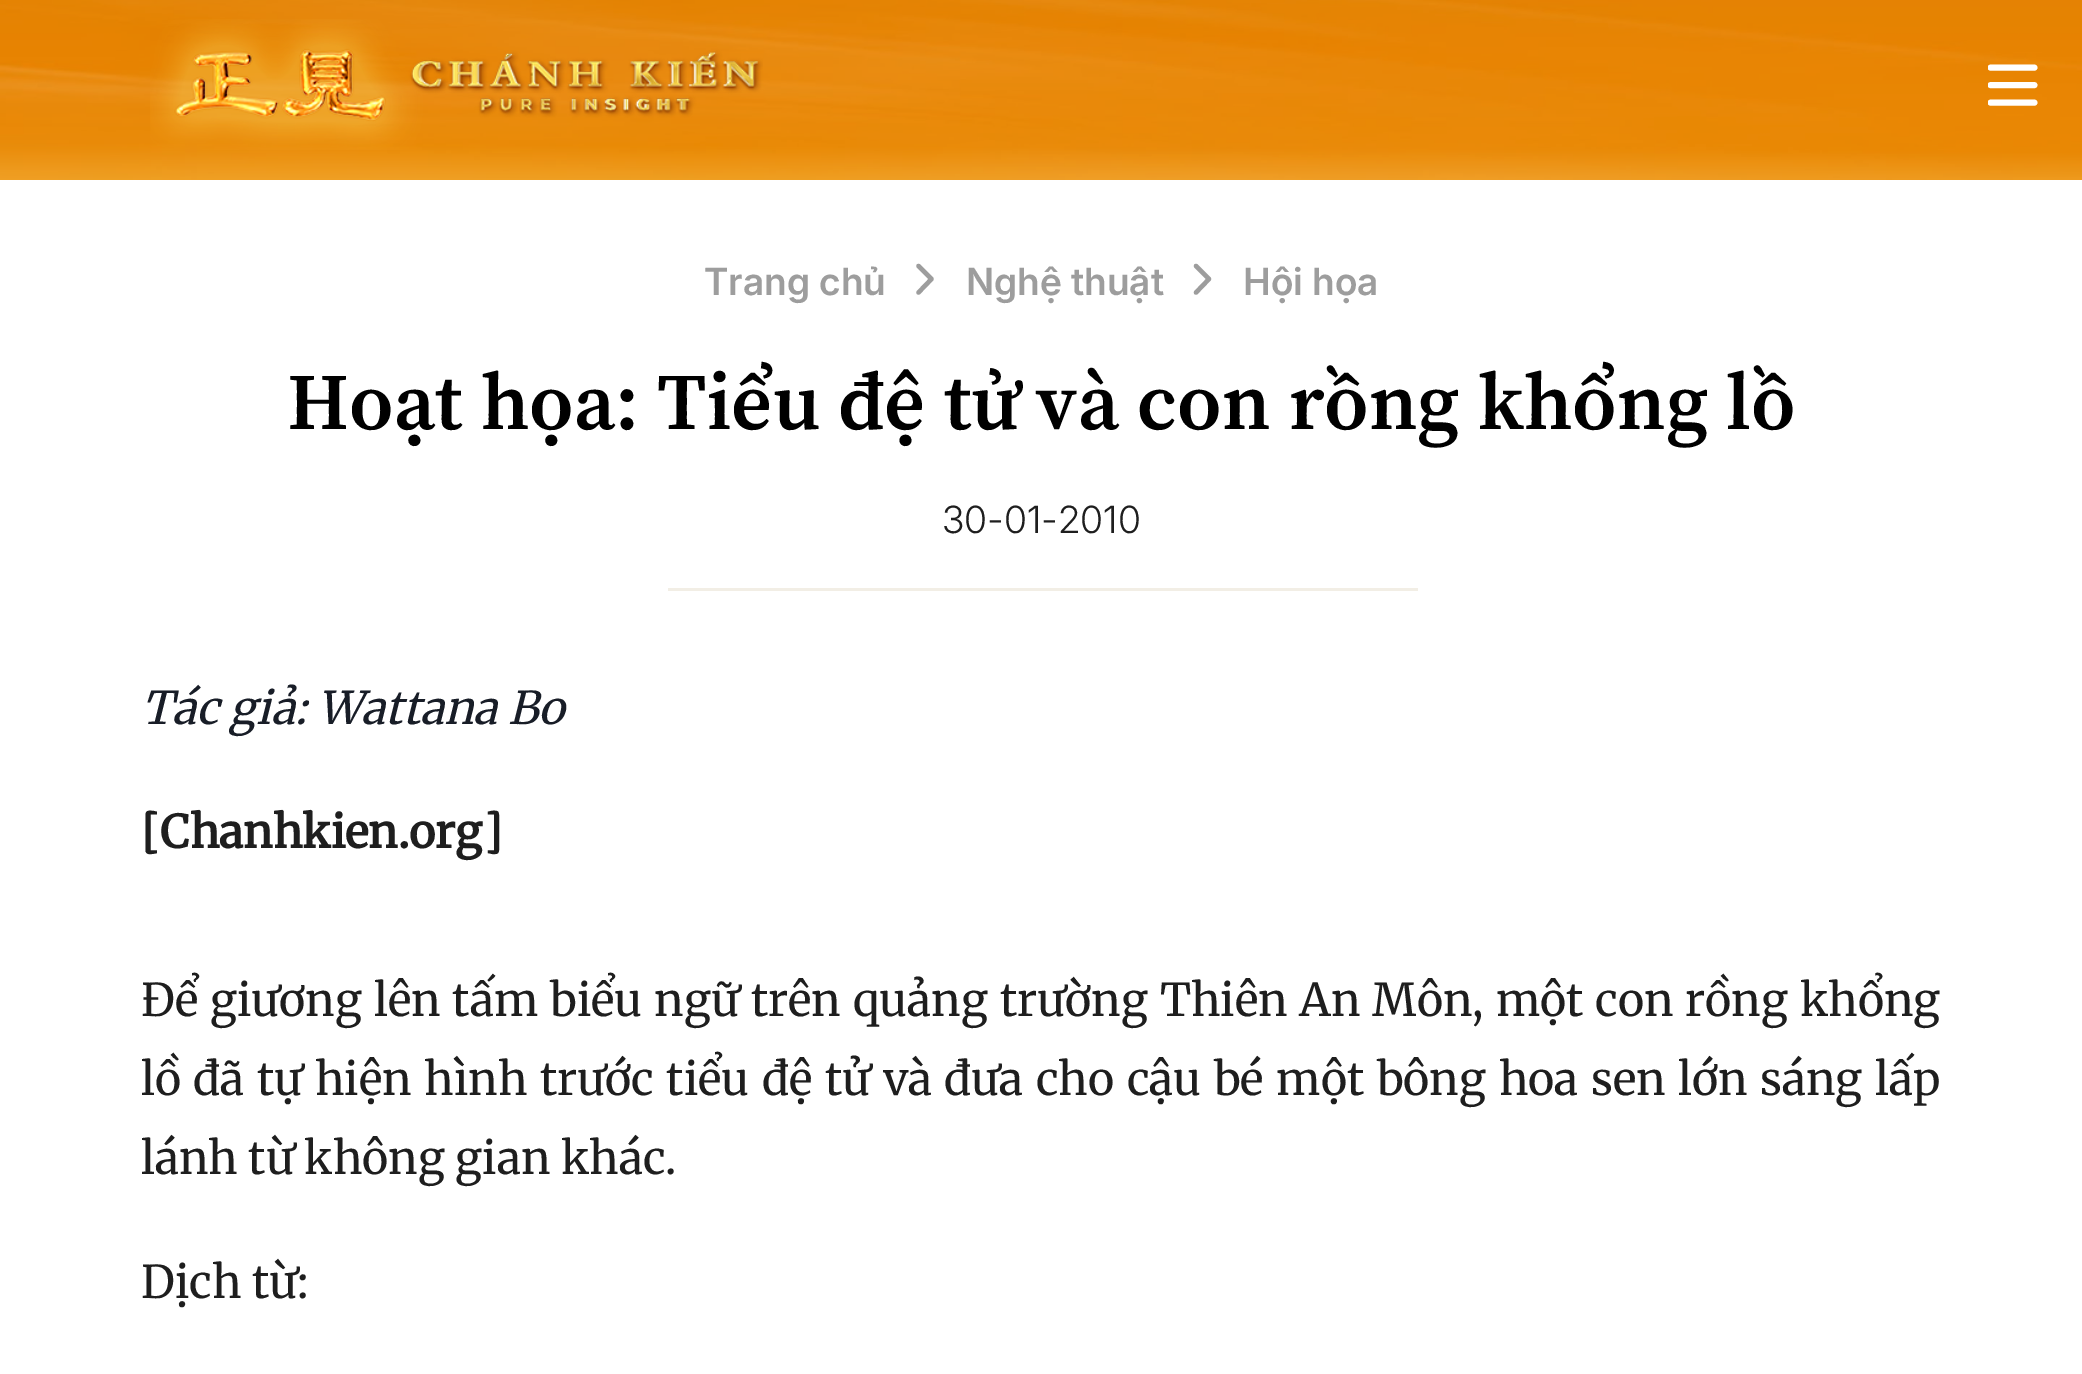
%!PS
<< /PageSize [2082 1374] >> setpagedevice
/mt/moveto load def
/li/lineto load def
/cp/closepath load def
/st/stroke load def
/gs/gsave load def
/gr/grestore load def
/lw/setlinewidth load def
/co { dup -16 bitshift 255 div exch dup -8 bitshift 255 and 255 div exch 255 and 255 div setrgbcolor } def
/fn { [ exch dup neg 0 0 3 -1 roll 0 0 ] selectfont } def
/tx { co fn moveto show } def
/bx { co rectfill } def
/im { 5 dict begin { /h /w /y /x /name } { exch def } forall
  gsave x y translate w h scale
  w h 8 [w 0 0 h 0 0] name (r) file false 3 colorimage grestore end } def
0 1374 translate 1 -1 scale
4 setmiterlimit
0 0 2082 1374 16#FFFFFF bx
gs 0 0 mt 2082 0 li 2082 180 li 0 180 li cp clip newpath
<< /ShadingType 2 /ColorSpace /DeviceRGB /Coords [1042 -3.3 1041 232] /Extend [true true] /Function << /FunctionType 3 /Domain [0 1] /Functions [<< /FunctionType 2 /Domain [0 1] /C0 [.902 .518 .004] /C1 [.902 .518 .004] /N 1 >> << /FunctionType 2 /Domain [0 1] /C0 [.902 .518 .004] /C1 [.976 .808 .447] /N 1 >>] /Bounds [.64] /Encode [0 1 0 1] >> >> shfill gr
(media/1.raw) 0 0 2082 180 im
(media/2.raw) 150 19 613 131 im
gs
1988 60 50 50 rectclip
5.9 lw
1 setlinecap
1 setlinejoin
1990.5 67.5 mt 2034.5 67.5 li 1990.5 85 mt 2034.5 85 li 1990.5 102.5 mt 2034.5 102.5 li st
gr
16#9D9D9D co
4.4 lw
1 setlinecap
1 setlinejoin
918.5 292.5 mt 931.5 279 li 918.5 266 li st
1196 292.5 mt 1209 279 li 1196 266 li st
668 588 750 3 16#F2EEE5 bx
(Trang chủ) 704 295 /Inter-SemiBold 37.5 16#9D9D9D tx
(Nghệ thuật) 966 295 /Inter-SemiBold 37.5 16#9D9D9D tx
(Hội họa) 1243 295 /Inter-SemiBold 37.5 16#9D9D9D tx
(Hoạt họa: Tiểu đệ tử và con rồng khổng lồ) 287 429 /SourceSerifPro-SemiBold 80 16#000000 tx
(30-01-2010) 942 533 /Inter-Light 37.5 16#1E1E1E tx
(Tác giả: Wattana Bo) 141 724 /Merriweather-Italic 45 16#181D27 tx
([Chanhkien.org]) 141 848 /Merriweather-Bold 45 16#1E1E1E tx
/Merriweather-Regular 45 fn
141 1016 mt 1.3 0 32 (Để giương lên tấm biểu ngữ trên quảng trường Thiên An Môn, một con rồng khổng) widthshow
141 1095 mt 2 0 32 (lồ đã tự hiện hình trước tiểu đệ tử và đưa cho cậu bé một bông hoa sen lớn sáng lấp) widthshow
(lánh từ không gian khác.) 141 1174 /Merriweather-Regular 45 16#1E1E1E tx
(Dịch từ:) 141 1298 /Merriweather-Regular 45 16#1E1E1E tx
showpage
